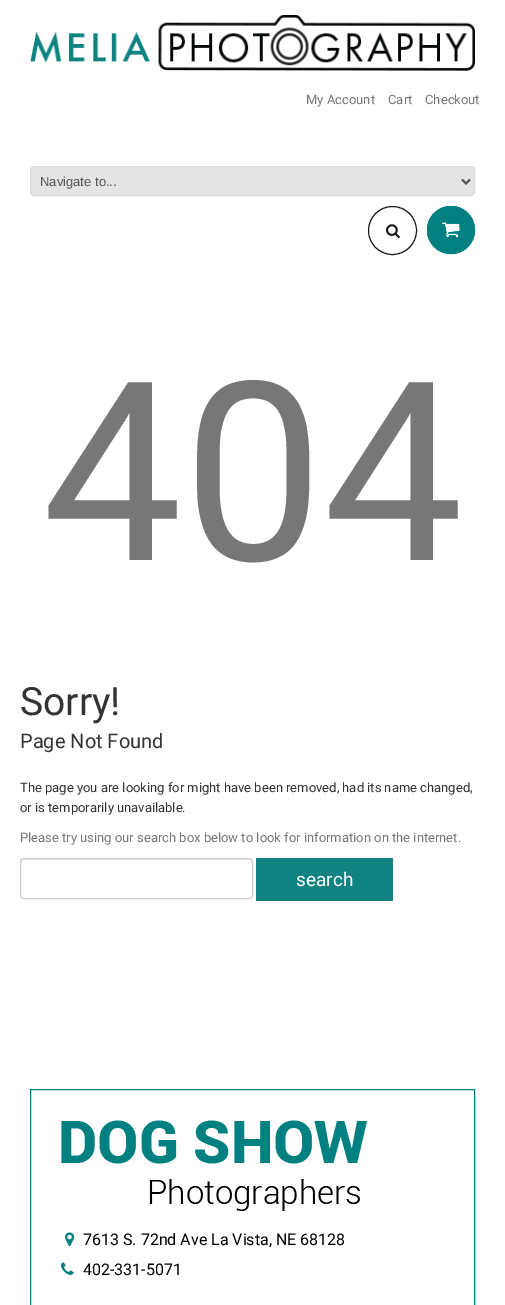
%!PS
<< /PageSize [505 1305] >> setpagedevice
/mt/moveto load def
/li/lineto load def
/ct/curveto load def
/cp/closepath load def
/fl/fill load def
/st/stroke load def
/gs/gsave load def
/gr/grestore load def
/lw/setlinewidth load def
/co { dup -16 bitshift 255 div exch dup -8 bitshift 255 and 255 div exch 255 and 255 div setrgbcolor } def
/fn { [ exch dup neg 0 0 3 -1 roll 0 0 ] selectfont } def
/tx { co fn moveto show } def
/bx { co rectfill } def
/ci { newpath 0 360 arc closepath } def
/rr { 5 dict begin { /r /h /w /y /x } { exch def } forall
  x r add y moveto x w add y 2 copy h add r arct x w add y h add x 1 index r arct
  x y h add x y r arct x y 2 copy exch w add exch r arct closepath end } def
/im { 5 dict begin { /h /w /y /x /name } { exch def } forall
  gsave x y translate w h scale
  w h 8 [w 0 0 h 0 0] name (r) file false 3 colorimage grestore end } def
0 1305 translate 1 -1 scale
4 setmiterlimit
0 0 505 1305 16#FFFFFF bx
(media/1.raw) 30 15 445 56 im
16#E4E4E4 co
30.5 166.5 444 29 3.5 rr gs fl gr
16#DDDDDD co
st
16#555555 co
2 lw
462 179.5 mt 466 183.5 li 470 179.5 li st
16#191919 co
1 lw
392.5 230.5 24 ci st
(media/2.raw) 386 224 14 15 im
16#008080 co
451 230 24 ci fl
(media/3.raw) 442 222 18 16 im
451 230 23.5 ci st
16#ECECEC co
24 860 mt 249 860 li 251 860 252 861 252 863 ct 252 861 251 859 249 859 ct 24 859 li 22 859 21 861 21 863 ct 21 861 22 860 24 860 ct cp fl
16#CCCCCC co
20.5 858.5 232 40 3.5 rr st
256 858 137 43 16#108282 bx
16#008080 co
30.5 1089.5 444 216 rectstroke
(media/4.raw) 61 1120 306 91 im
(media/5.raw) 65 1232 10 15 im
(media/6.raw) 61 1262 13 13 im
(My Account) 306 104 /Roboto-Regular 13 16#777777 tx
(Cart) 388 104 /Roboto-Regular 13 16#777777 tx
(Checkout) 425 104 /Roboto-Regular 13 16#777777 tx
(Navigate to...) 40 186 /LiberationSans-Regular 13 16#555555 tx
(404) 42 560 /Roboto-Regular 250 16#777777 tx
(Sorry!) 20 715 /Roboto-Regular 39 16#333333 tx
(Page Not Found) 20 748 /Roboto-Regular 20 16#333333 tx
(The page you are looking for might have been removed, had its name changed,) 20 792 /Roboto-Regular 13 16#333333 tx
(or is temporarily unavailable.) 20 812 /Roboto-Regular 13 16#333333 tx
(Please try using our search box below to look for information on the internet.) 20 842 /Roboto-Regular 13 16#777777 tx
(search) 296 886 /Roboto-Regular 19 16#FFFFFF tx
(7613 S. 72nd Ave La Vista, NE 68128) 83 1245 /Roboto-Regular 16 16#000000 tx
(402-331-5071) 83 1275 /Roboto-Regular 16 16#000000 tx
showpage
